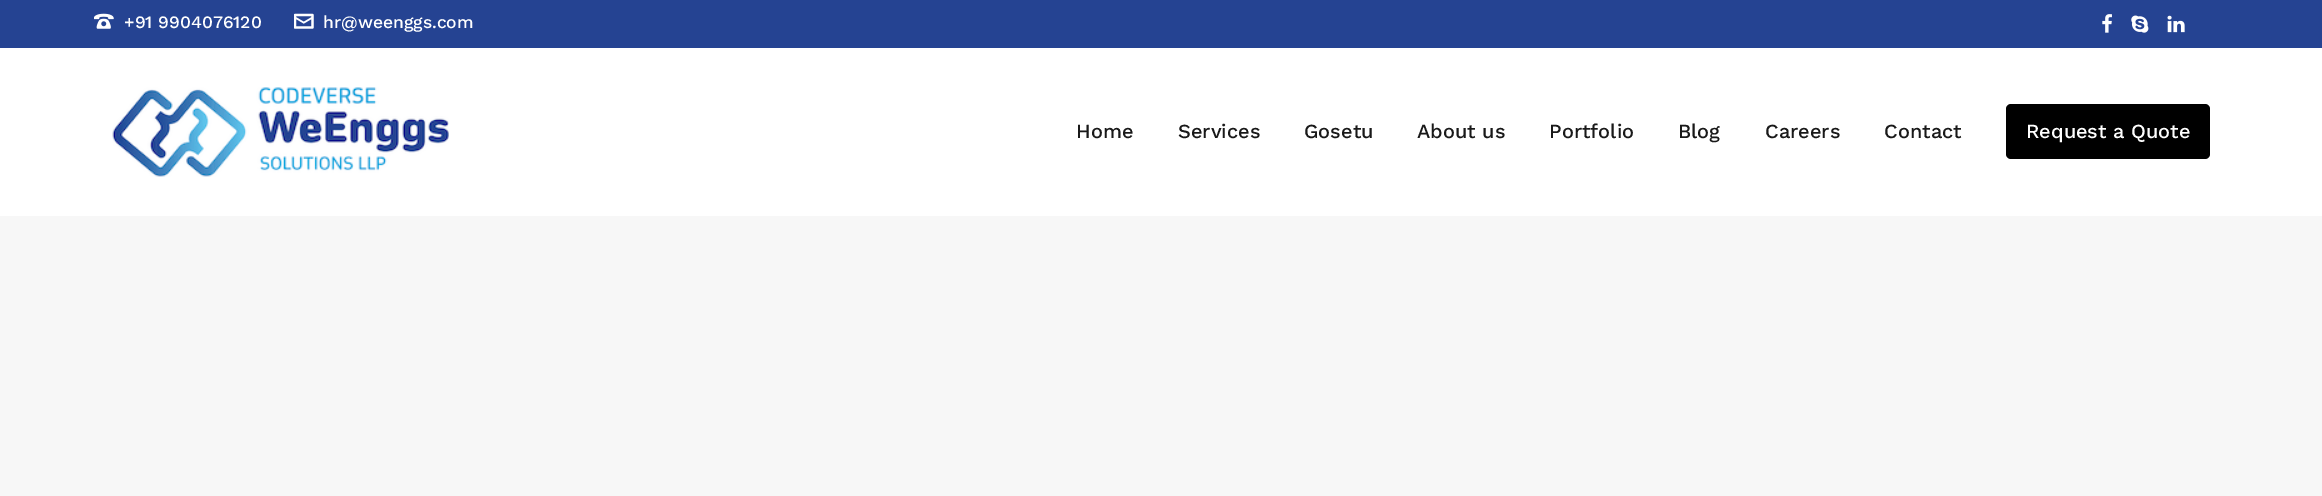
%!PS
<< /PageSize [2322 496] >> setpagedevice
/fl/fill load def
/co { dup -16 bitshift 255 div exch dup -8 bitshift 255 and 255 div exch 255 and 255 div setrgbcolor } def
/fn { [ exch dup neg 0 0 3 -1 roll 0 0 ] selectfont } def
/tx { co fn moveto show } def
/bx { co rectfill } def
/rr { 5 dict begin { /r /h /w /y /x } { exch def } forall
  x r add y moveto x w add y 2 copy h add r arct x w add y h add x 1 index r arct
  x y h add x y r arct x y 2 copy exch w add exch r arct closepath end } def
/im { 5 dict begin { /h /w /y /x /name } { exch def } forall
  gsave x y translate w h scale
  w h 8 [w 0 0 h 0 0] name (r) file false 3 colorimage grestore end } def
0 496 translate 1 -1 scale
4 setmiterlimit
0 0 2322 496 16#FFFFFF bx
0 0 2322 48 16#254392 bx
(media/1.raw) 94 13 20 16 im
(media/2.raw) 294 13 20 16 im
(media/3.raw) 2102 14 10 19 im
(media/4.raw) 2131 15 18 18 im
(media/5.raw) 2167 15 18 18 im
(media/6.raw) 112 87 337 90 im
16#000000 co
2006 104 204 55 5 rr fl
0 216 2322 280 16#F7F7F7 bx
(+91 9904076120) 124 28 /WorkSans-Medium 17.5 16#FFFFFF tx
(hr@weenggs.com) 323 28 /WorkSans-Medium 17.5 16#FFFFFF tx
(Home) 1076 138 /WorkSans-Medium 20 16#191919 tx
(Services) 1178 138 /WorkSans-Medium 20 16#191919 tx
(Gosetu) 1304 138 /WorkSans-Medium 20 16#191919 tx
(About us) 1417 138 /WorkSans-Medium 20 16#191919 tx
(Portfolio) 1549 138 /WorkSans-Medium 20 16#191919 tx
(Blog) 1678 138 /WorkSans-Medium 20 16#191919 tx
(Careers) 1765 138 /WorkSans-Medium 20 16#191919 tx
(Contact) 1884 138 /WorkSans-Medium 20 16#191919 tx
(Request a Quote) 2026 138 /WorkSans-Medium 20 16#FFFFFF tx
showpage
